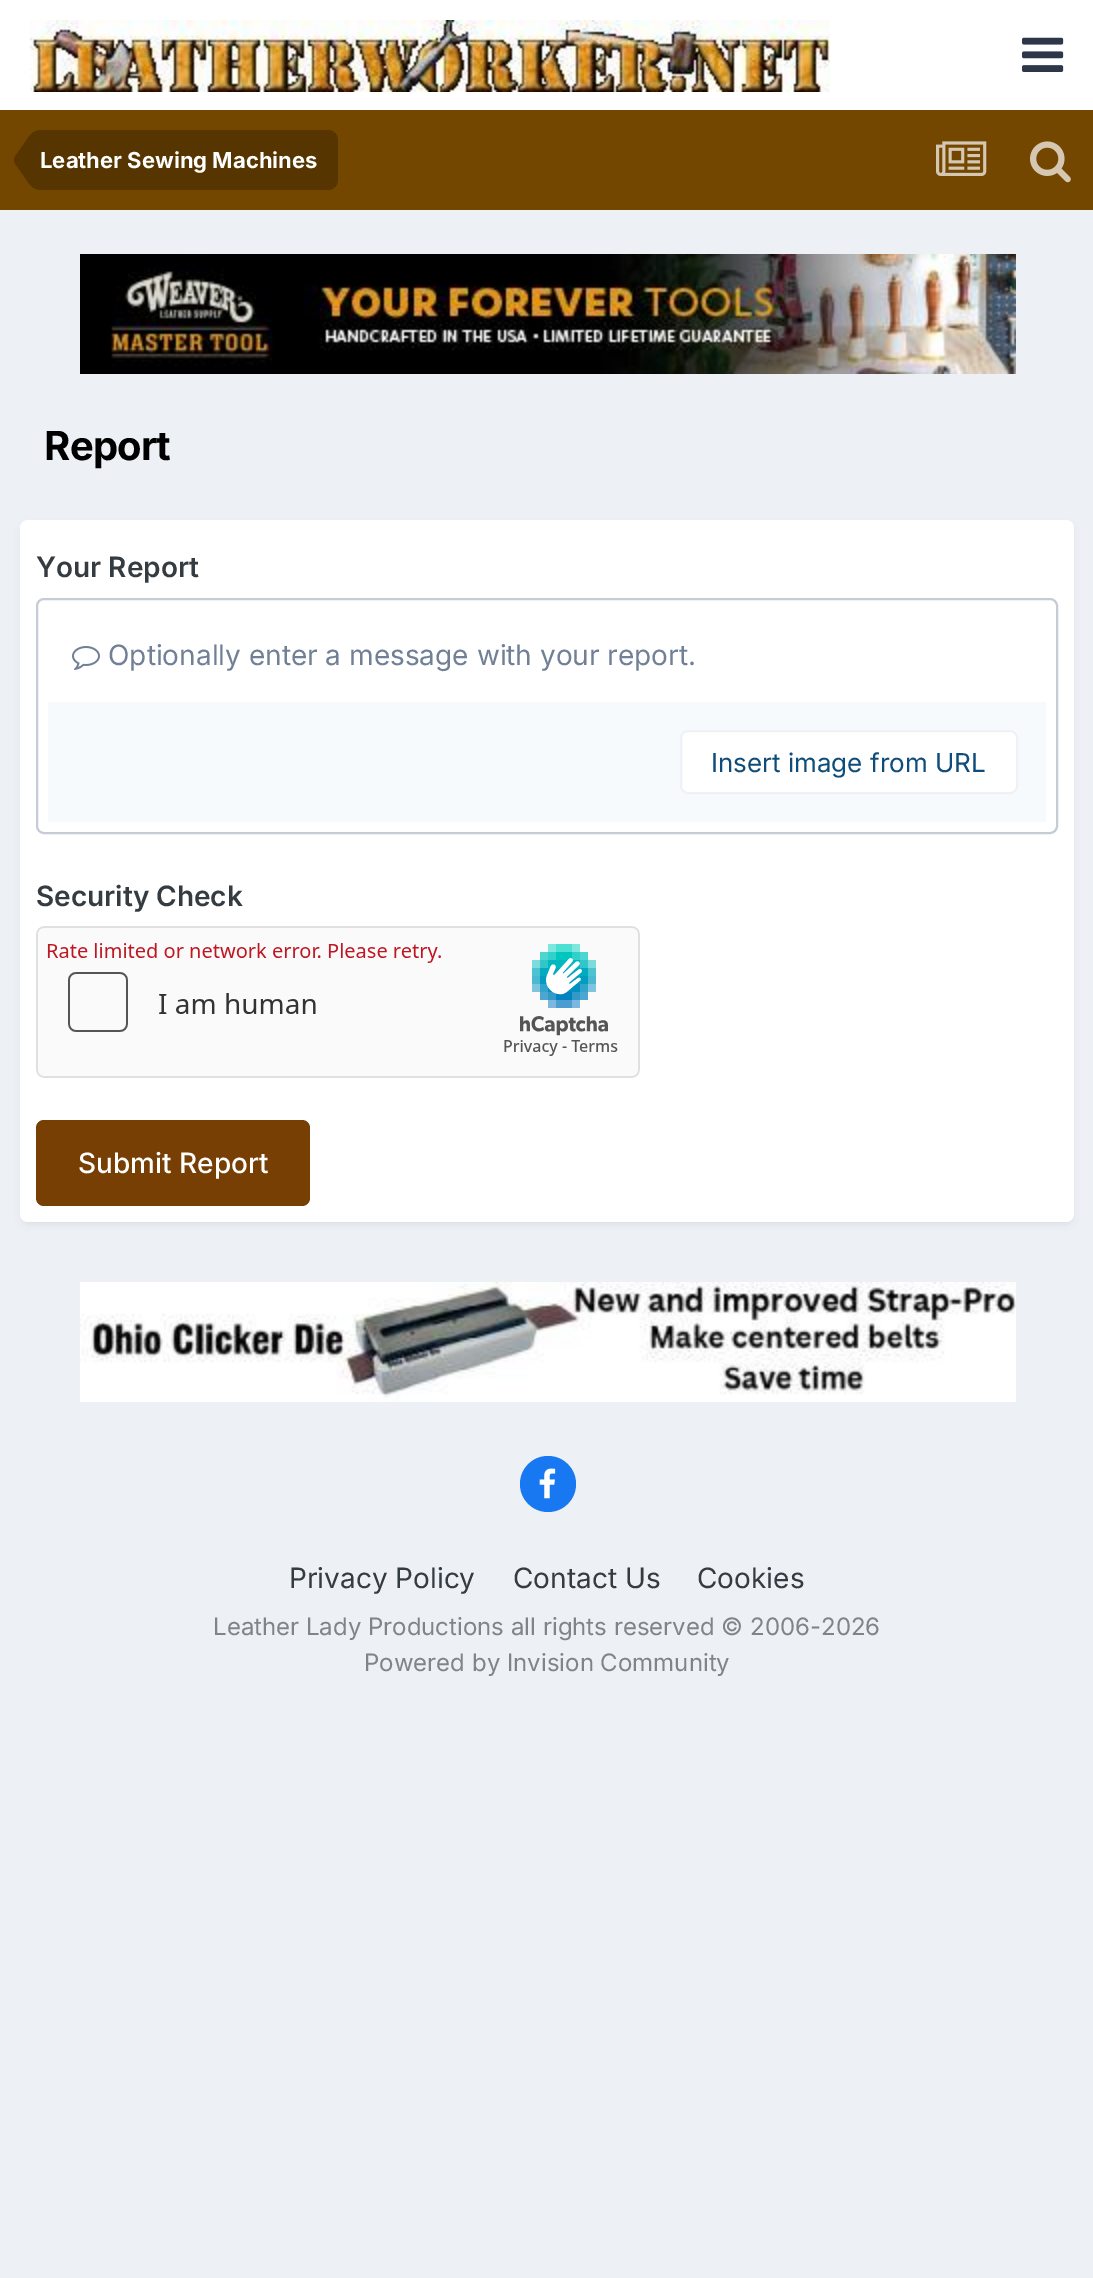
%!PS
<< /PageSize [1093 2278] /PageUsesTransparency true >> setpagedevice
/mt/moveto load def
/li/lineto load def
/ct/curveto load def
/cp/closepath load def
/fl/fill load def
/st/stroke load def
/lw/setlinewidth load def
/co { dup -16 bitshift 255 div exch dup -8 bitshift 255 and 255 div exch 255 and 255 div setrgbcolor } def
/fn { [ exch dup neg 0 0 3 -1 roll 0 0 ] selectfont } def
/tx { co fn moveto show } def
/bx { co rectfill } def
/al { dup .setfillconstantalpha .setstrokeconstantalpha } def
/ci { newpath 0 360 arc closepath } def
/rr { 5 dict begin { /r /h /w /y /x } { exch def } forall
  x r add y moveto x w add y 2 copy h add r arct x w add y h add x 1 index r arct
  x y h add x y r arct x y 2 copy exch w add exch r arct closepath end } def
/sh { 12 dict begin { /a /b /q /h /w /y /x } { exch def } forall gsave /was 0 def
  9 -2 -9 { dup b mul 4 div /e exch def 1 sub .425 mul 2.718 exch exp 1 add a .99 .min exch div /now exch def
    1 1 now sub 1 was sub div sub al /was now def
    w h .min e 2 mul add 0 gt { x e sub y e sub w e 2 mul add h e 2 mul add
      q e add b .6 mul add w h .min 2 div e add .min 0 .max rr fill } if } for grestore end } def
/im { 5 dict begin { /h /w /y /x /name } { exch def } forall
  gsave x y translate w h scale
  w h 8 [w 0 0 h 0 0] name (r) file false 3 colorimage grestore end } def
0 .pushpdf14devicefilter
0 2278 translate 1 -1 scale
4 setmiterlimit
0 0 1093 2278 16#EDF0F4 bx
0 0 1093 110 16#FFFFFF bx
(media/1.raw) 30 20 800 72 im
(media/2.raw) 1022 37 42 35 im
0 110 1093 100 16#744700 bx
16#573500 co
40 130 mt 328 130 li 333.5 130 338 134.5 338 140 ct 338 180 li 338 185.5 333.5 190 328 190 ct 40 190 li cp fl
40 160 mt 40 190 li 36.5 190 33 188 30 185 ct 15 163.5 li 14.5 162.5 14 161.5 14 160 ct cp 40 160 mt 14 160 li 14 158.5 14.5 157.5 15 156.5 ct 30 135 li 33 132 36.5 130 40 130 ct cp fl
(media/3.raw) 936 141 51 35 im
(media/4.raw) 1030 141 41 42 im
(media/5.raw) 80 254 936 120 im
16#2D3748 co
22 526 1050 698 6 4 .1 sh
16#FFFFFF co
20 520 1054 702 8 rr fl
16#C6CCD5 co
2 lw
37 599 1020 234 7 rr st
(media/6.raw) 72 646 28 24 im
48 702 998 120 16#F7FAFC bx
16#FFFFFF co
680 730 338 64 8 rr fl
0.07 al
16#0E4C79 co
681 731 336 62 7 rr st
1 al
(media/7.raw) 36 926 604 152 im
16#783F04 co
36 1120 274 86 8 rr fl
(media/8.raw) 80 1282 936 120 im
16#1778F2 co
548 1484 28 ci fl
(media/9.raw) 539 1468 17 31 im
(Leather Sewing Machines) 40 168 /Inter-Bold 22 16#FFFFFF tx
/Inter-Bold 40 fn
16#000000 co
44 460 mt -.75 0 (Report) ashow
(Your Report) 36 577 /Inter-SemiBold 28 16#353C41 tx
(Optionally enter a message with your report.) 108 665 /Inter-Regular 28 16#718096 tx
(Insert image from URL) 711 772 /Inter-Regular 26 16#0E4C79 tx
(Security Check) 36 906 /Inter-SemiBold 28 16#353C41 tx
(Submit Report) 78 1173 /Inter-Medium 28 16#FFFFFF tx
(Privacy Policy) 289 1588 /Inter-Regular 28 16#353C41 tx
(Contact Us) 513 1588 /Inter-Regular 28 16#353C41 tx
(Cookies) 697 1588 /Inter-Regular 28 16#353C41 tx
(Leather Lady Productions all rights reserved © 2006-2026) 213 1635 /Inter-Regular 24 16#7F8489 tx
(Powered by Invision Community) 364 1671 /Inter-Regular 24 16#7F8489 tx
.poppdf14devicefilter showpage
